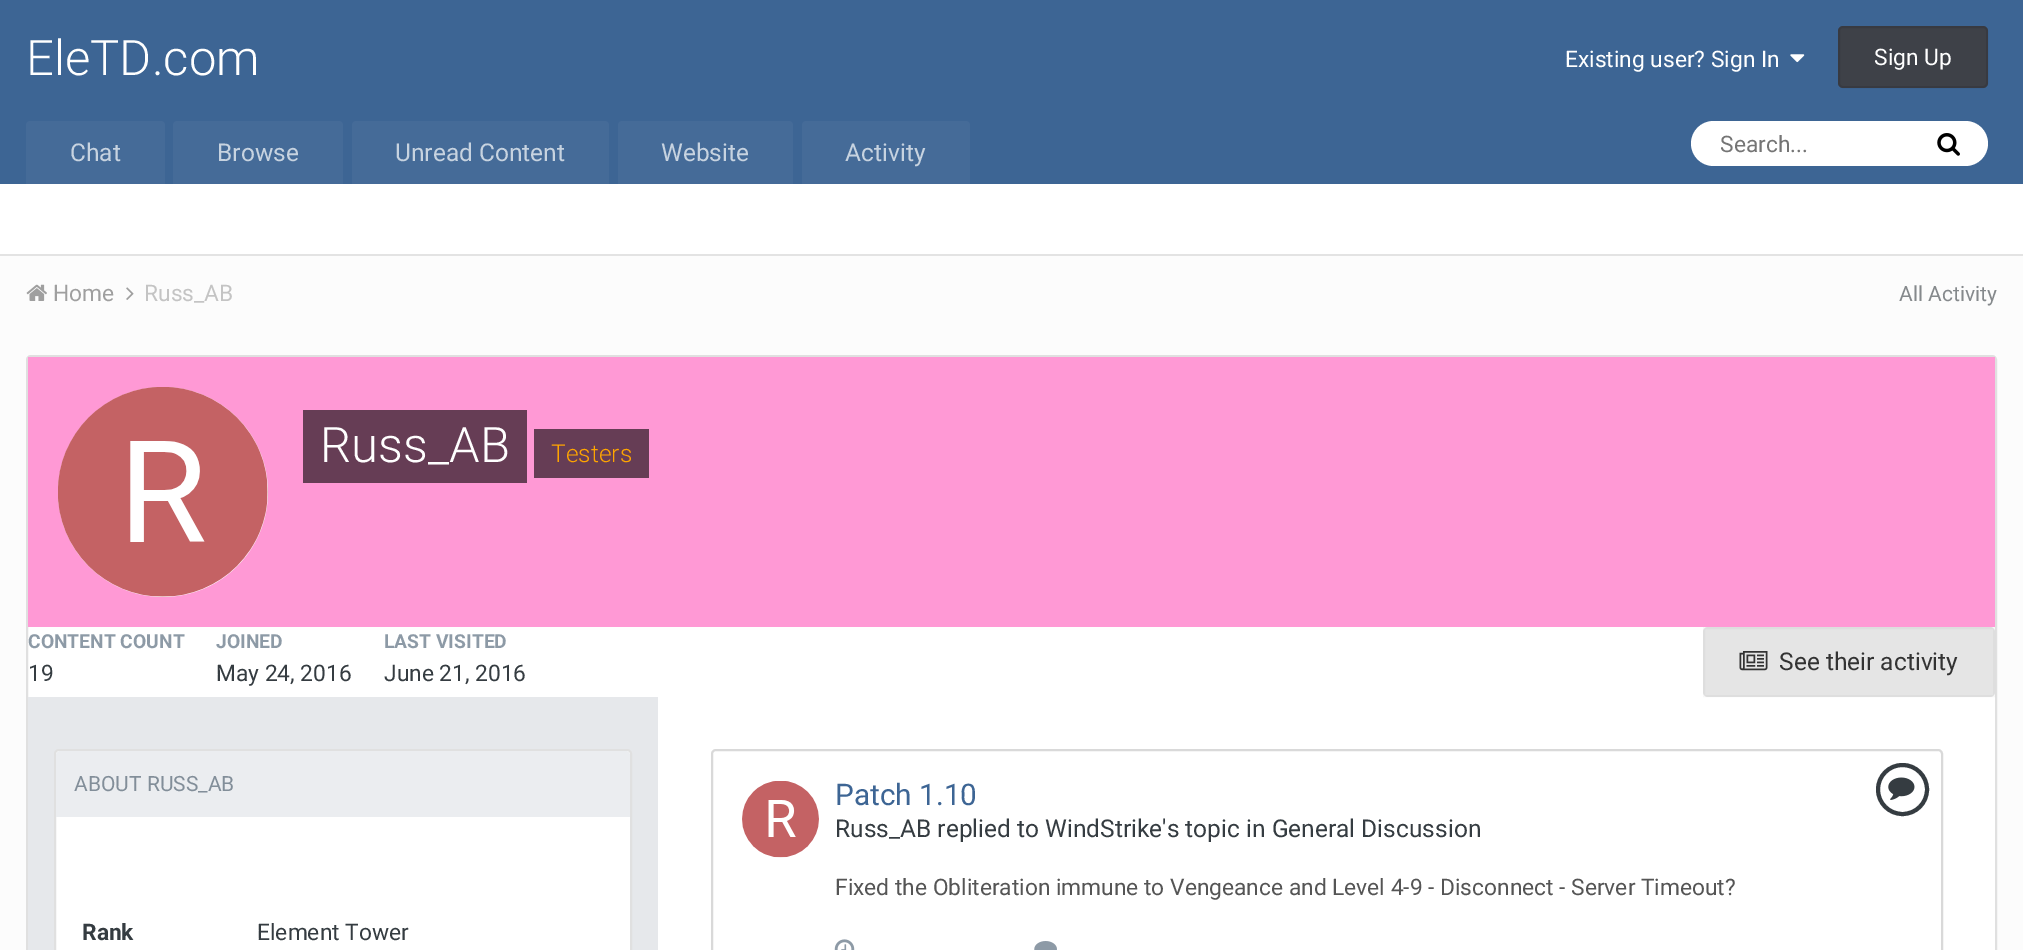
%!PS
<< /PageSize [2023 950] /PageUsesTransparency true >> setpagedevice
/mt/moveto load def
/li/lineto load def
/ct/curveto load def
/cp/closepath load def
/fl/fill load def
/st/stroke load def
/gs/gsave load def
/gr/grestore load def
/lw/setlinewidth load def
/co { dup -16 bitshift 255 div exch dup -8 bitshift 255 and 255 div exch 255 and 255 div setrgbcolor } def
/fn { [ exch dup neg 0 0 3 -1 roll 0 0 ] selectfont } def
/tx { co fn moveto show } def
/bx { co rectfill } def
/al { dup .setfillconstantalpha .setstrokeconstantalpha } def
/ci { newpath 0 360 arc closepath } def
/rr { 5 dict begin { /r /h /w /y /x } { exch def } forall
  x r add y moveto x w add y 2 copy h add r arct x w add y h add x 1 index r arct
  x y h add x y r arct x y 2 copy exch w add exch r arct closepath end } def
/im { 5 dict begin { /h /w /y /x /name } { exch def } forall
  gsave x y translate w h scale
  w h 8 [w 0 0 h 0 0] name (r) file false 3 colorimage grestore end } def
0 .pushpdf14devicefilter
0 950 translate 1 -1 scale
4 setmiterlimit
0 0 2023 950 16#FCFCFC bx
0 254 2023 2 16#E3E3E3 bx
0 0 2023 184 16#3D6594 bx
(media/1.raw) 1790 54 15 9 im
16#3E4148 co
1838 26 150 62 5 rr fl
0.1 al
16#000000 co
2 lw
1839 27 148 60 4 rr st
1 al
0 184 2023 70 16#FFFFFF bx
16#456B98 co
30 121 mt 161 121 li 163 121 165 123 165 125 ct 165 184 li 26 184 li 26 125 li 26 123 28 121 30 121 ct cp fl
177 121 mt 339 121 li 341 121 343 123 343 125 ct 343 184 li 173 184 li 173 125 li 173 123 175 121 177 121 ct cp fl
356 121 mt 605 121 li 607 121 609 123 609 125 ct 609 184 li 352 184 li 352 125 li 352 123 354 121 356 121 ct cp fl
622 121 mt 789 121 li 791 121 793 123 793 125 ct 793 184 li 618 184 li 618 125 li 618 123 620 121 622 121 ct cp fl
806 121 mt 966 121 li 968 121 970 123 970 125 ct 970 184 li 802 184 li 802 125 li 802 123 804 121 806 121 ct cp fl
16#FFFFFF co
1691 121 297 45 22.5 rr fl
(media/2.raw) 1937 133 23 23 im
(media/3.raw) 26 284 21 17 im
(media/4.raw) 126 287 8 13 im
27 356 1969 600 4 rr gs fl gr
16#E0E0E0 co
st
28 357 1967 270 16#FF99D5 bx
16#FFFFFF co
163 492 105 ci fl
(media/5.raw) 58 387 210 210 im
303 410 224 73 16#663D55 bx
534 429 115 49 16#663D55 bx
16#E5E5E5 co
1703 627 292 70 5 rr fl
0.03 al
16#000000 co
1704 628 290 68 rectstroke
1 al
(media/6.raw) 1739 651 29 20 im
28 697 630 253 16#E6E8EB bx
16#FFFFFF co
55 750 576 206 4 rr gs fl gr
16#E0E0E0 co
st
16#EBEDF0 co
60 751 mt 626 751 li 628 751 630 753 630 755 ct 630 817 li 56 817 li 56 755 li 56 753 58 751 60 751 ct cp fl
16#D9D9D9 co
712 750 1230 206 4 rr st
(media/7.raw) 742 781 77 77 im
16#353C41 co
4 lw
1902.5 789.5 24.5 ci st
(media/8.raw) 1888 777 27 23 im
(media/9.raw) 834 939 21 11 im
(media/10.raw) 1034 941 23 9 im
(EleTD.com) 26 75 /Roboto-Light 49 16#FFFFFF tx
(Existing user? Sign In) 1565 67 /Roboto-Regular 22.75 16#FFFFFF tx
(Sign Up) 1874 65 /Roboto-Regular 22.75 16#FFFFFF tx
(Chat) 70 161 /Roboto-Regular 24.5 16#C7D3E0 tx
(Browse) 217 161 /Roboto-Regular 24.5 16#C7D3E0 tx
(Unread Content) 395 161 /Roboto-Regular 24.5 16#C7D3E0 tx
(Website) 661 161 /Roboto-Regular 24.5 16#C7D3E0 tx
(Activity) 845 161 /Roboto-Regular 24.5 16#C7D3E0 tx
(Search...) 1720 152 /Roboto-Regular 22.75 16#757575 tx
(Home) 53 301 /Roboto-Regular 22.75 16#9F9F9F tx
(Russ_AB) 144 301 /Roboto-Regular 22.75 16#C4C4C4 tx
(All Activity) 1899 301 /Roboto-Regular 21 16#85898C tx
(Russ_AB) 320 462 /Roboto-Light 49 16#FFFFFF tx
(Testers) 551 462 /Roboto-Light 24.5 16#FFA500 tx
(CONTENT COUNT) 28 648 /Roboto-Bold 19.25 16#8D9AA6 tx
(19) 28 681 /Roboto-Regular 22.75 16#353C41 tx
(JOINED) 216 648 /Roboto-Bold 19.25 16#8D9AA6 tx
(May 24, 2016) 216 681 /Roboto-Regular 22.75 16#353C41 tx
(LAST VISITED) 384 648 /Roboto-Bold 19.25 16#8D9AA6 tx
(June 21, 2016) 384 681 /Roboto-Regular 22.75 16#353C41 tx
(See their activity) 1779 670 /Roboto-Regular 24.5 16#333333 tx
(ABOUT RUSS_AB) 74 791 /Roboto-Regular 21 16#828E99 tx
(Rank) 82 940 /Roboto-Bold 22.75 16#353C41 tx
(Element Tower) 257 940 /Roboto-Regular 22.75 16#353C41 tx
(Patch 1.10) 835 805 /Roboto-Regular 29.75 16#3D6594 tx
(Russ_AB replied to WindStrike's topic in General Discussion) 835 837 /Roboto-Regular 24.5 16#353C41 tx
(Fixed the Obliteration immune to Vengeance and Level 4-9 - Disconnect - Server Timeout?) 835 895 /Roboto-Regular 22.75 16#555555 tx
.poppdf14devicefilter showpage
